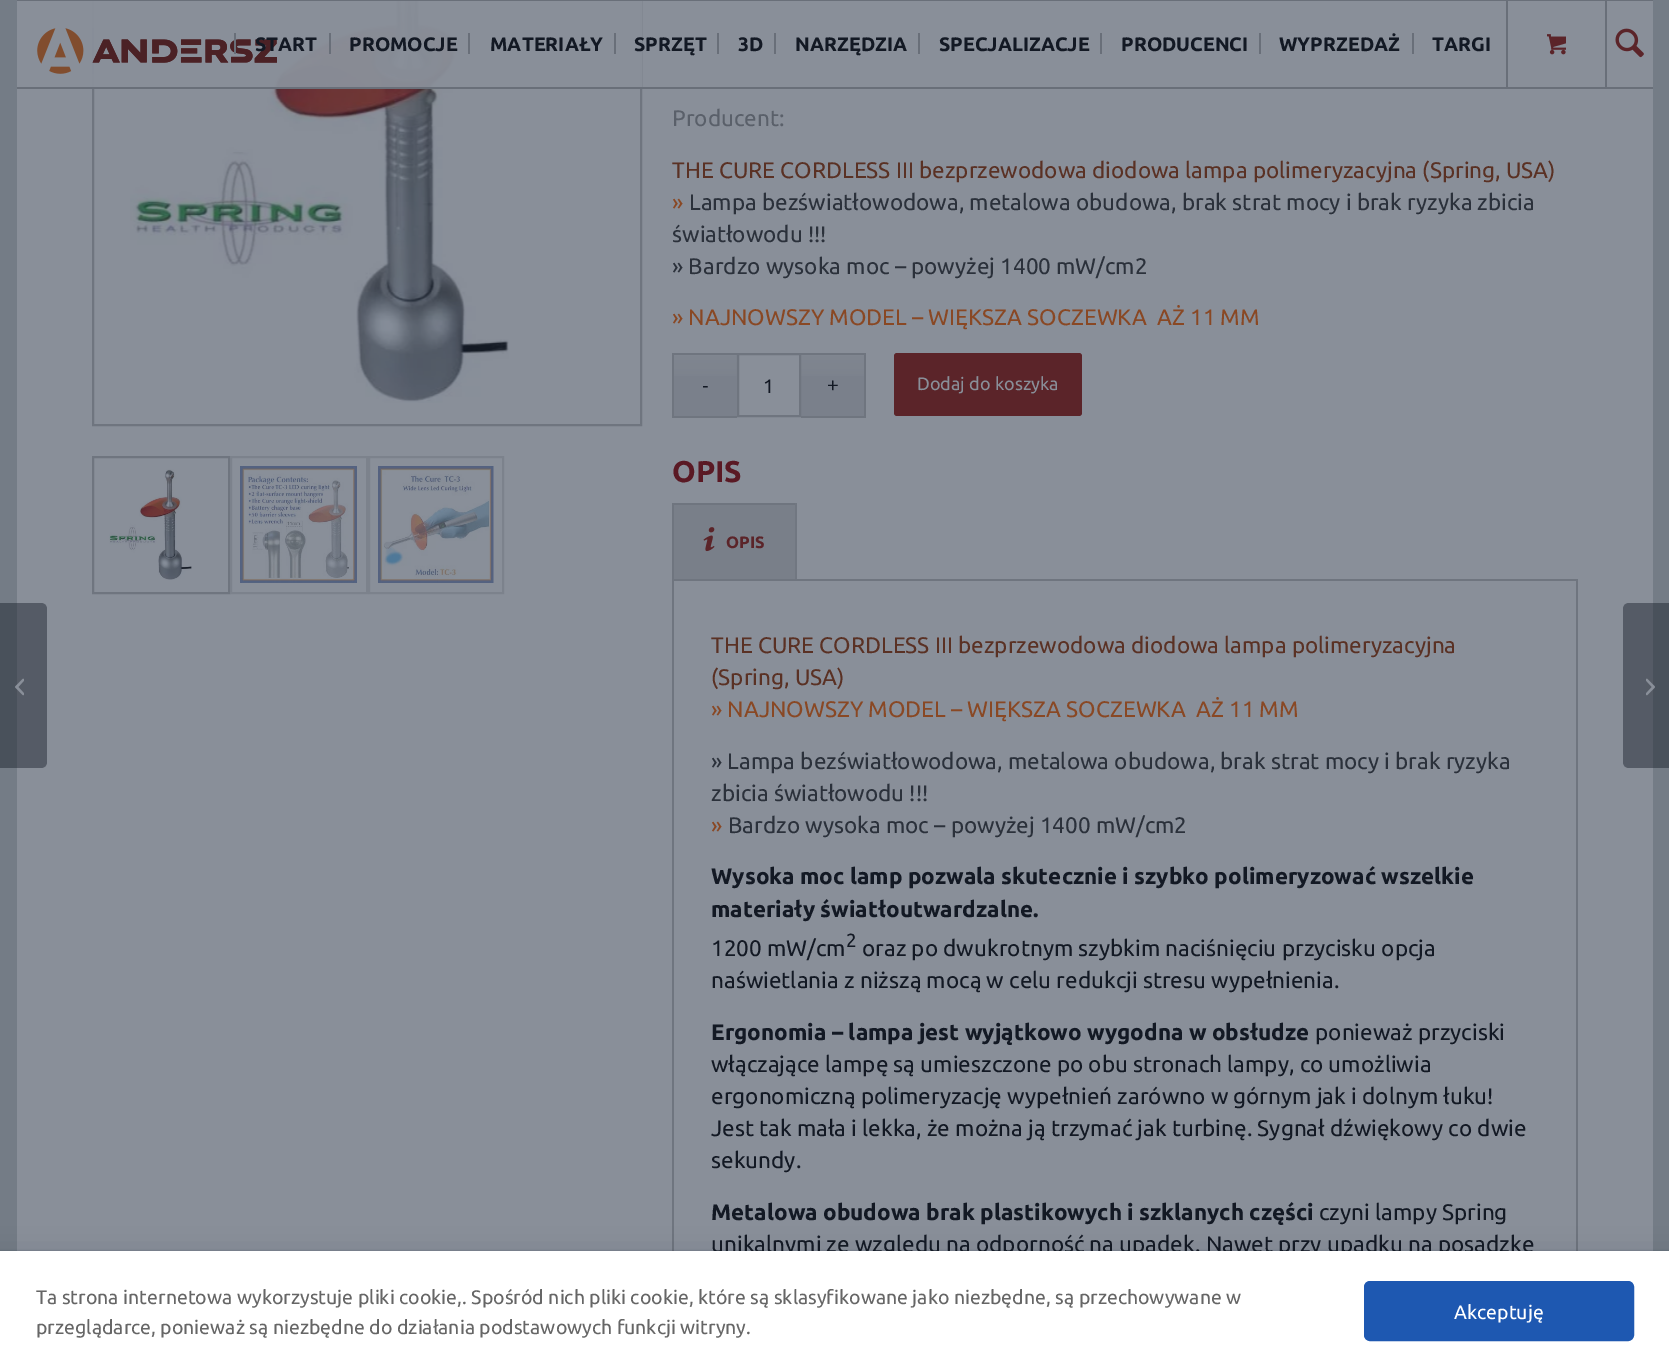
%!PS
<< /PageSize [1669 1370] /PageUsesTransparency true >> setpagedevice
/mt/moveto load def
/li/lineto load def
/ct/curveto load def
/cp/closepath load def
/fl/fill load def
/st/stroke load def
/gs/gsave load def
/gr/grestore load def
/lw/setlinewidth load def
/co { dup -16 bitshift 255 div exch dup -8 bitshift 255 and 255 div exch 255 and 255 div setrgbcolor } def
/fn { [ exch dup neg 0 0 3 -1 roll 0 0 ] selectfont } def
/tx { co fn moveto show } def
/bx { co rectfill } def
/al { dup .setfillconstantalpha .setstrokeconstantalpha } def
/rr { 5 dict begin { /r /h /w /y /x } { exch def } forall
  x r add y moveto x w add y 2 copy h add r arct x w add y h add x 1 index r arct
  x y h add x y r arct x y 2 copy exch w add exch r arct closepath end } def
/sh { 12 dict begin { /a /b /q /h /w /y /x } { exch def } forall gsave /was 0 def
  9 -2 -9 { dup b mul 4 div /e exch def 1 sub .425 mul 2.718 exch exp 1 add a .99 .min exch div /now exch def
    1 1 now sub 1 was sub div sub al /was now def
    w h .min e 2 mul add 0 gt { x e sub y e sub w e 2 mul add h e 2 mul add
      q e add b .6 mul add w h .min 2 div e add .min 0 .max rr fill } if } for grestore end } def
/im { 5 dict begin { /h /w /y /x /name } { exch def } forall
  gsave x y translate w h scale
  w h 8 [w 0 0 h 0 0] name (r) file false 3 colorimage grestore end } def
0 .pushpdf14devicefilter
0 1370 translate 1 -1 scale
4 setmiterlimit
0 0 1669 1370 16#747C86 bx
17 1 1636 1250 16#898F99 bx
1605 0 2 87 16#696F79 bx
1506 0 2 87 16#696F79 bx
16#6F757F co
2 lw
93 -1 548 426 rectstroke
17 0 1636 1 16#696F79 bx
(media/5.raw) 130 1 379 402 im
0.95 al
92 1 550 86 16#898F99 bx
1 al
17 87 1636 2 16#696F79 bx
(media/1.raw) 37 28 240 46 im
234 33 2 21 16#696F79 bx
329 33 2 21 16#696F79 bx
468 33 2 21 16#696F79 bx
614 33 2 21 16#696F79 bx
717 33 2 21 16#696F79 bx
774 33 2 21 16#696F79 bx
918 33 2 21 16#696F79 bx
1100 33 2 21 16#696F79 bx
1259 33 2 21 16#696F79 bx
1412 33 2 21 16#696F79 bx
(media/2.raw) 1547 34 19 21 im
(media/3.raw) 1615 28 29 30 im
0.44 al
16#131924 co
0 603 mt 41 603 li 44.5 603 47 605.5 47 609 ct 47 762 li 47 765.5 44.5 768 41 768 ct 0 768 li cp fl
1 al
(media/4.raw) 15 678 9 18 im
16#6F757F co
93 457 136 136 rectstroke
(media/6.raw) 109 469 83 111 im
16#7C828C co
231 457 136 136 rectstroke
(media/7.raw) 240 466 117 117 im
369 457 134 136 rectstroke
(media/8.raw) 378 466 116 117 im
674 355 63 61 16#7A808B bx
(media/9.raw) 674 355 63 21 im
801 355 63 61 16#7A808B bx
(media/10.raw) 801 355 63 21 im
672 353 65 2 16#6F757F bx
672 416 65 2 16#6F757F bx
672 353 2 64 16#6F757F bx
738 354 62 62 rectstroke
801 353 65 2 16#6F757F bx
864 353 2 64 16#6F757F bx
801 416 65 2 16#6F757F bx
16#5B2429 co
894 353 188 63 3 rr fl
674 505 121 74 16#797F89 bx
672 503 125 2 16#6F757F bx
795 503 2 76 16#717781 bx
672 503 2 76 16#6F757F bx
(media/11.raw) 703 527 12 25 im
672 579 mt 672 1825 li 672 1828 674 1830 677 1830 ct 1573 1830 li 1576 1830 1578 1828 1578 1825 ct 1578 579 li cp 674 581 mt 674 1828 li 1576 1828 li 1576 581 li cp eofill
0.44 al
16#131924 co
1629 603 mt 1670 603 li 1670 768 li 1629 768 li 1625.5 768 1623 765.5 1623 762 ct 1623 609 li 1623 605.5 1625.5 603 1629 603 ct cp fl
1 al
(media/12.raw) 1646 678 9 18 im
16#242F42 co
-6 1260 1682 102 0 15 .31 sh
(START) 255 51 /Ubuntu-Bold 19.5 16#131924 tx
(PROMOCJE) 349 51 /Ubuntu-Bold 19.5 16#131924 tx
(MATERIAŁY) 490 51 /Ubuntu-Bold 19.5 16#131924 tx
(SPRZĘT) 634 51 /Ubuntu-Bold 19.5 16#131924 tx
(3D) 738 51 /Ubuntu-Bold 19.5 16#131924 tx
(NARZĘDZIA) 795 51 /Ubuntu-Bold 19.5 16#131924 tx
(SPECJALIZACJE) 939 51 /Ubuntu-Bold 19.5 16#131924 tx
(PRODUCENCI) 1121 51 /Ubuntu-Bold 19.5 16#131924 tx
(WYPRZEDAŻ) 1279 51 /Ubuntu-Bold 19.5 16#131924 tx
(TARGI) 1432 51 /Ubuntu-Bold 19.5 16#131924 tx
(Producent:) 672 126 /Ubuntu-Regular 22.5 16#5A606A tx
(THE CURE CORDLESS III bezprzewodowa diodowa lampa polimeryzacyjna \(Spring, USA\)) 672 178 /Ubuntu-Regular 22.5 16#5A3124 tx
(») 672 210 /Ubuntu-Regular 22.5 16#894824 tx
(Lampa bezświatłowodowa, metalowa obudowa, brak strat mocy i brak ryzyka zbicia) 689 210 /Ubuntu-Regular 22.5 16#2B313B tx
(światłowodu !!!) 672 242 /Ubuntu-Regular 22.5 16#2B313B tx
(» Bardzo wysoka moc – powyżej 1400 mW/cm2) 672 274 /Ubuntu-Regular 22.5 16#2B313B tx
(» NAJNOWSZY MODEL – WIĘKSZA SOCZEWKA  AŻ 11 MM) 672 325 /Ubuntu-Regular 22.5 16#894824 tx
(-) 702 392 /LiberationSans-Regular 20 16#131924 tx
(1) 763 393 /Ubuntu-Regular 19.5 16#131924 tx
(+) 827 392 /LiberationSans-Regular 20 16#131924 tx
(Dodaj do koszyka) 917 390 /Ubuntu-Regular 18 16#898F99 tx
(OPIS) 672 482 /Ubuntu-Bold 30 16#5A1924 tx
(OPIS) 726 548 /Ubuntu-Bold 16.5 16#5B2429 tx
(THE CURE CORDLESS III bezprzewodowa diodowa lampa polimeryzacyjna) 711 653 /Ubuntu-Regular 22.5 16#5A3124 tx
(\(Spring, USA\)) 711 685 /Ubuntu-Regular 22.5 16#5A3124 tx
(» NAJNOWSZY MODEL – WIĘKSZA SOCZEWKA  AŻ 11 MM) 711 717 /Ubuntu-Regular 22.5 16#894824 tx
(» Lampa bezświatłowodowa, metalowa obudowa, brak strat mocy i brak ryzyka) 711 769 /Ubuntu-Regular 22.5 16#2B313B tx
(zbicia światłowodu !!!) 711 801 /Ubuntu-Regular 22.5 16#2B313B tx
(») 711 833 /Ubuntu-Regular 22.5 16#894824 tx
(Bardzo wysoka moc – powyżej 1400 mW/cm2) 728 833 /Ubuntu-Regular 22.5 16#2B313B tx
(Wysoka moc lamp pozwala skutecznie i szybko polimeryzować wszelkie) 711 884 /Ubuntu-Bold 22.5 16#131924 tx
(materiały światłoutwardzalne.) 711 917 /Ubuntu-Bold 22.5 16#131924 tx
(1200 mW/cm) 711 956 /Ubuntu-Regular 22.5 16#131924 tx
(2) 846 947 /Ubuntu-Regular 19 16#131924 tx
(oraz po dwukrotnym szybkim naciśnięciu przycisku opcja) 862 956 /Ubuntu-Regular 22.5 16#131924 tx
(naświetlania z niższą mocą w celu redukcji stresu wypełnienia.) 711 988 /Ubuntu-Regular 22.5 16#131924 tx
(Ergonomia – lampa jest wyjątkowo wygodna w obsłudze) 711 1040 /Ubuntu-Bold 22.5 16#131924 tx
(ponieważ przyciski) 1315 1040 /Ubuntu-Regular 22.5 16#131924 tx
(włączające lampę są umieszczone po obu stronach lampy, co umożliwia) 711 1072 /Ubuntu-Regular 22.5 16#131924 tx
(ergonomiczną polimeryzację wypełnień zarówno w górnym jak i dolnym łuku!) 711 1104 /Ubuntu-Regular 22.5 16#131924 tx
(Jest tak mała i lekka, że można ją trzymać jak turbinę. Sygnał dźwiękowy co dwie) 711 1136 /Ubuntu-Regular 22.5 16#131924 tx
(sekundy.) 711 1168 /Ubuntu-Regular 22.5 16#131924 tx
(Metalowa obudowa brak plastikowych i szklanych części) 711 1220 /Ubuntu-Bold 22.5 16#131924 tx
(czyni lampy Spring) 1319 1220 /Ubuntu-Regular 22.5 16#131924 tx
(unikalnymi ze względu na odporność na upadek. Nawet przy upadku na posadzkę) 711 1252 /Ubuntu-Regular 22.5 16#131924 tx
0.08 al
16#242F42 co
-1 1251 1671 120 rectstroke
1 al
0 1251 1669 119 16#FFFFFF bx
(Ta strona internetowa wykorzystuje pliki cookie,. Spośród nich pliki cookie, które są sklasyfikowane jako niezbędne, są przechowywane w) 36 1304 /Ubuntu-Regular 19.5 16#666666 tx
(przeglądarce, ponieważ są niezbędne do działania podstawowych funkcji witryny.) 36 1334 /Ubuntu-Regular 19.5 16#666666 tx
16#1E58B1 co
1365 1282 268 58 5 rr gs fl gr
st
(Akceptuję) 1454 1319 /Ubuntu-Regular 19.5 16#FFFFFF tx
.poppdf14devicefilter showpage
